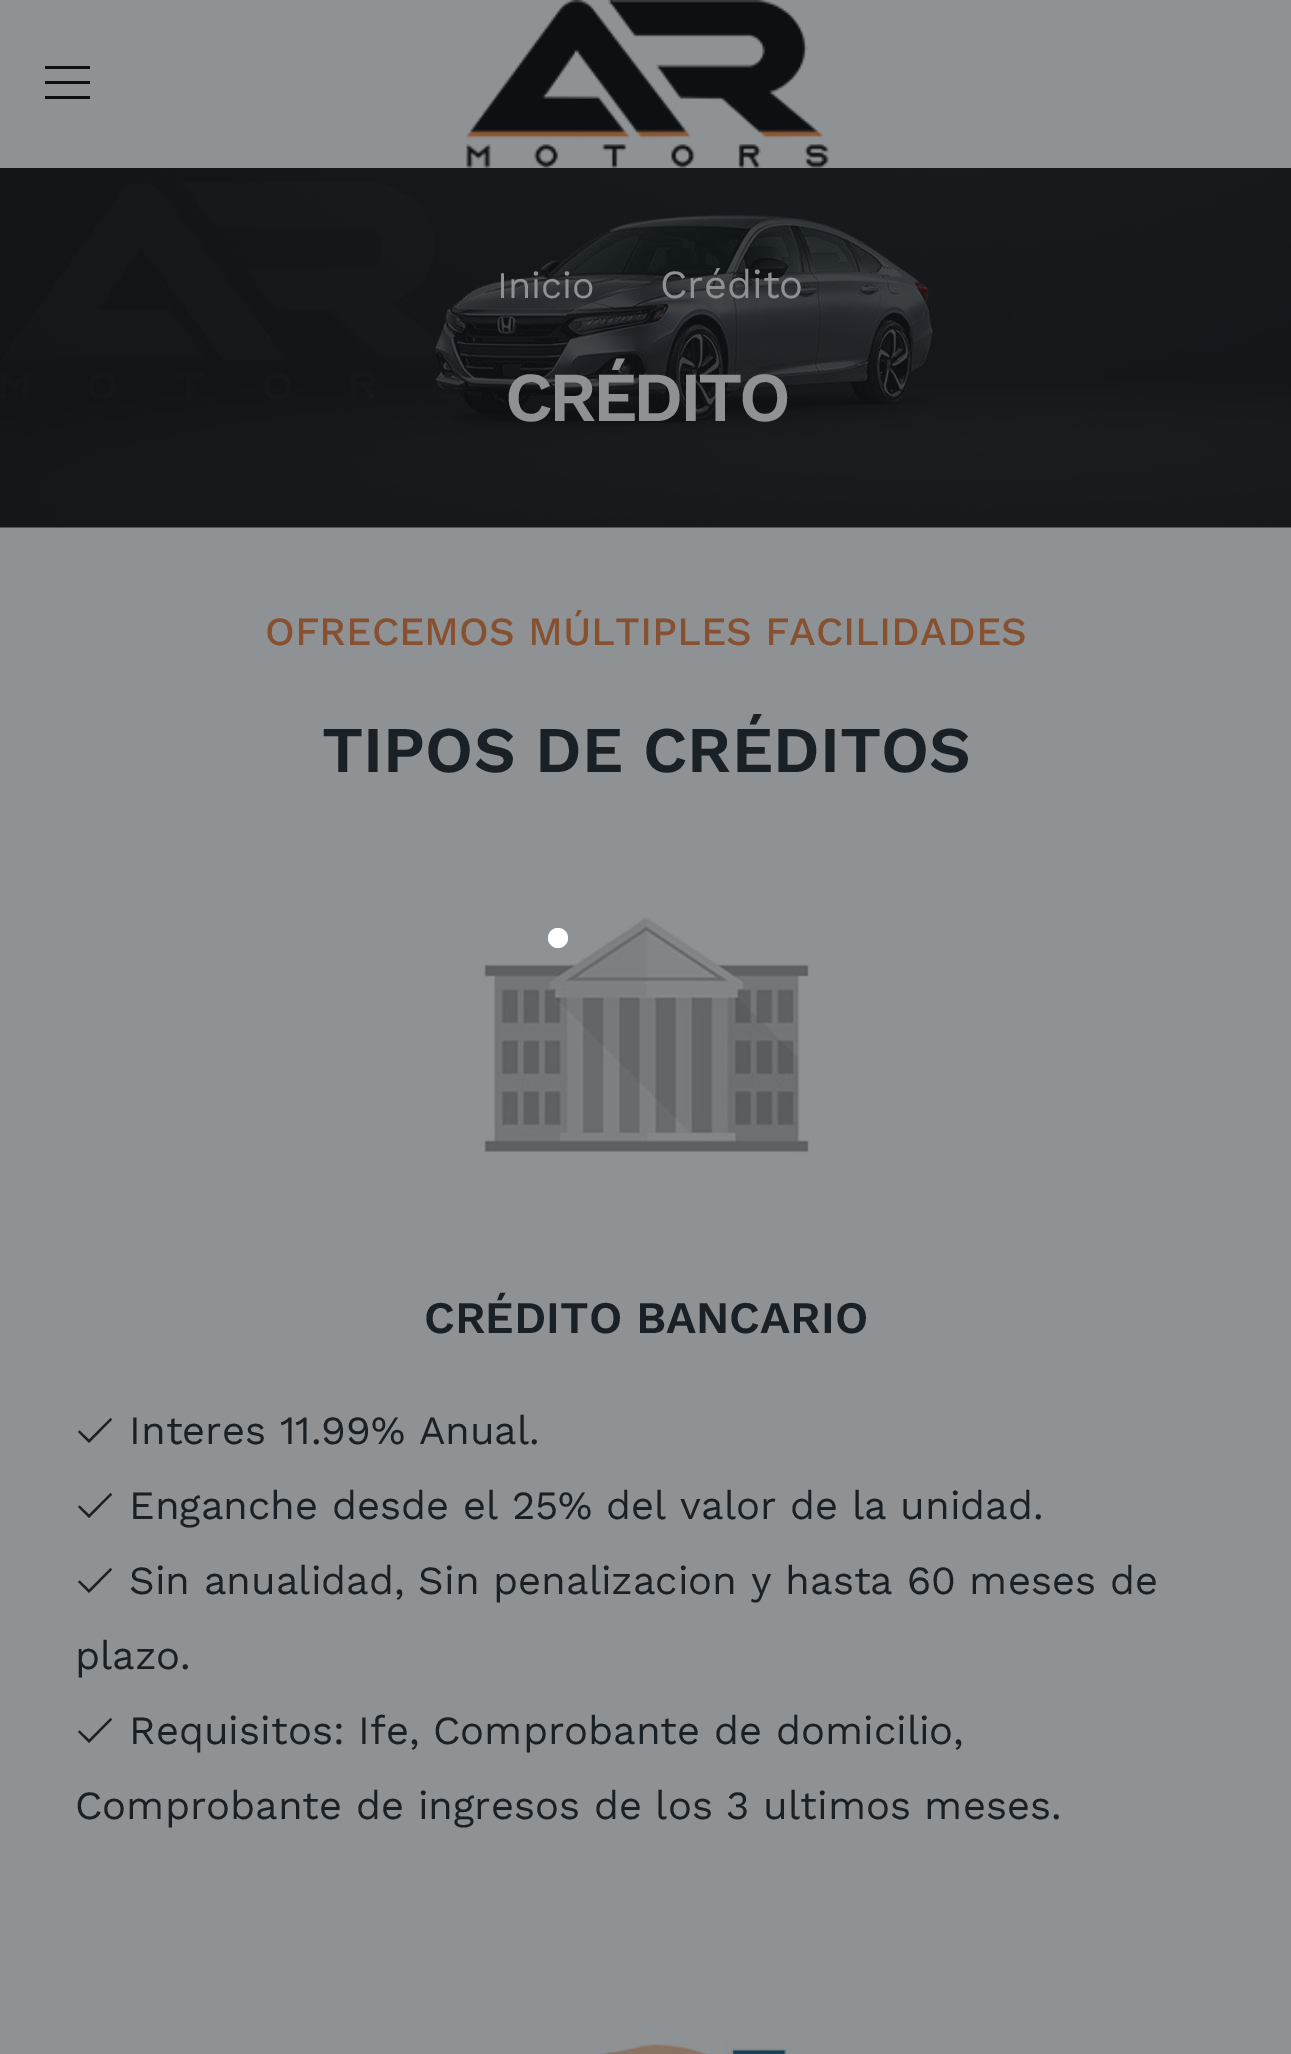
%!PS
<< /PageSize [1291 2054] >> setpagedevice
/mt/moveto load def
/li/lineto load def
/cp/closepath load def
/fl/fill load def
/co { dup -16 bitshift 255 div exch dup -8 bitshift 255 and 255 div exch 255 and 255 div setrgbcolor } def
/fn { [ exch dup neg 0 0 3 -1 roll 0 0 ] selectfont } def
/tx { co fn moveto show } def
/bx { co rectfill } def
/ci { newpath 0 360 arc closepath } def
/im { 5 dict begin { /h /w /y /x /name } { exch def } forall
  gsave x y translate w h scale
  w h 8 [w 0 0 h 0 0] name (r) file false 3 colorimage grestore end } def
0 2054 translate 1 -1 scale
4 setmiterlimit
0 0 1291 2054 16#8F9295 bx
16#0D1013 co
45 66 mt 45 69 li 90 69 li 90 66 li cp 45 81 mt 45 84 li 90 84 li 90 81 li cp 45 96 mt 45 99 li 90 99 li 90 96 li cp fl
(media/1.raw) 466 0 363 168 im
(media/2.raw) 0 168 1291 360 im
(media/3.raw) 484 917 325 236 im
16#1A2126 co
110.5 1418 mt 89 1439.5 li 79.5 1430.5 li 78 1432 li 89 1443 li 112 1419.5 li cp fl
110.5 1493 mt 89 1514.5 li 79.5 1505.5 li 78 1507 li 89 1518 li 112 1494.5 li cp fl
110.5 1568 mt 89 1589.5 li 79.5 1580.5 li 78 1582 li 89 1593 li 112 1569.5 li cp fl
110.5 1718 mt 89 1739.5 li 79.5 1730.5 li 78 1732 li 89 1743 li 112 1719.5 li cp fl
(media/4.raw) 592 2040 201 14 im
16#FFFFFF co
558 938 10 ci fl
(Inicio) 497 298 /WorkSans-Regular 37.5 16#8F9295 tx
(Crédito) 660 298 /WorkSans-Regular 40 16#8F9295 tx
/WorkSans-SemiBold 70 fn
505 421 mt -3.75 0 (CRÉDITO) ashow
(OFRECEMOS MÚLTIPLES FACILIDADES) 265 645 /WorkSans-Medium 40 16#875131 tx
(TIPOS DE CRÉDITOS) 322 772 /WorkSans-SemiBold 65 16#1A2126 tx
(CRÉDITO BANCARIO) 424 1333 /WorkSans-SemiBold 45 16#1A2126 tx
(Interes 11.99% Anual.) 129 1444 /WorkSans-Regular 40 16#1A2126 tx
(Enganche desde el 25% del valor de la unidad.) 129 1519 /WorkSans-Regular 40 16#1A2126 tx
(Sin anualidad, Sin penalizacion y hasta 60 meses de) 129 1594 /WorkSans-Regular 40 16#1A2126 tx
(plazo.) 75 1669 /WorkSans-Regular 40 16#1A2126 tx
(Requisitos: Ife, Comprobante de domicilio,) 129 1744 /WorkSans-Regular 40 16#1A2126 tx
(Comprobante de ingresos de los 3 ultimos meses.) 75 1819 /WorkSans-Regular 40 16#1A2126 tx
showpage
